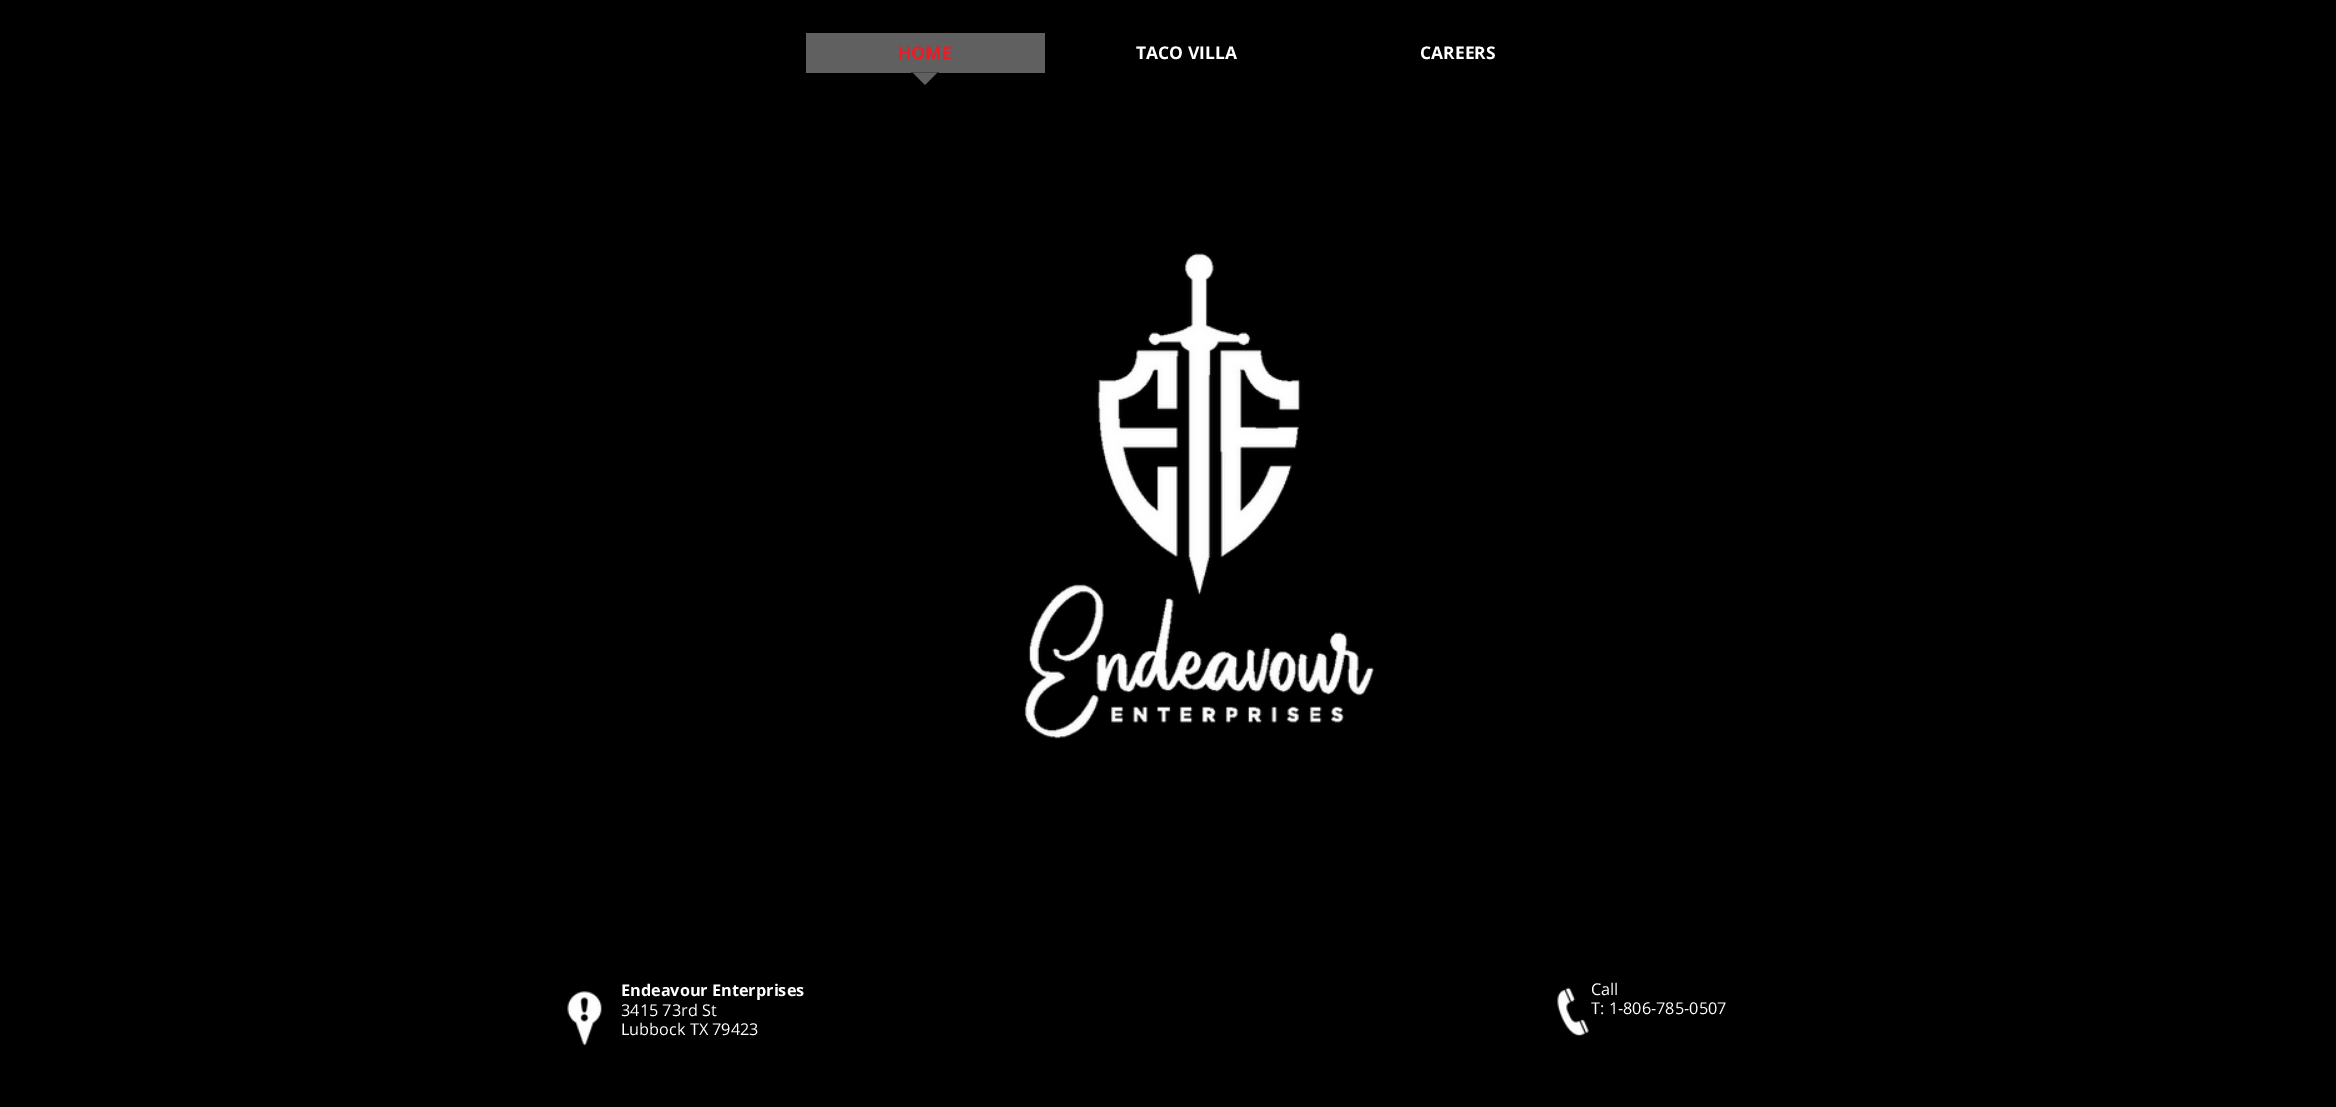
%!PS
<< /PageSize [2336 1107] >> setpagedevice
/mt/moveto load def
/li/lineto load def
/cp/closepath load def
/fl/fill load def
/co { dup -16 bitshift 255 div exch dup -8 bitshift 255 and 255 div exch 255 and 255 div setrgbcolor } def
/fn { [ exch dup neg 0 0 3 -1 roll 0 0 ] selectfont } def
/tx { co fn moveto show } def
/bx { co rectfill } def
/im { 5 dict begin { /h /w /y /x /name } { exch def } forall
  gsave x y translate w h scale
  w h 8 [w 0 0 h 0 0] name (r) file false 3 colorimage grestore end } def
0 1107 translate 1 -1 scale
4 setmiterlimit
0 0 2336 1107 16#000000 bx
806 33 239 40 16#606060 bx
16#000000 co
911 72.5 mt 939 72.5 li 925 86 li cp fl
16#606060 co
912.5 72.5 mt 937.5 72.5 li 925 85 li cp fl
(media/1.raw) 1024 253 350 486 im
(media/2.raw) 567 991 35 55 im
(media/3.raw) 1557 987 32 49 im
(HOME) 898 59 /OpenSans-Bold 17.5 16#ED1C24 tx
(TACO VILLA) 1136 59 /OpenSans-Bold 17.5 16#FFFFFF tx
(CAREERS) 1420 59 /OpenSans-Bold 17.5 16#FFFFFF tx
(Endeavour Enterprises) 621 996 /OpenSans-Bold 16.25 16#FFFFFF tx
(3415 73rd St) 621 1016 /OpenSans-Regular 16.25 16#FFFFFF tx
(Lubbock TX 79423) 621 1035 /OpenSans-Regular 16.25 16#FFFFFF tx
(Call) 1591 995 /OpenSans-Regular 16.25 16#FFFFFF tx
(T: 1-806-785-0507) 1591 1014 /OpenSans-Regular 16.25 16#FFFFFF tx
showpage
